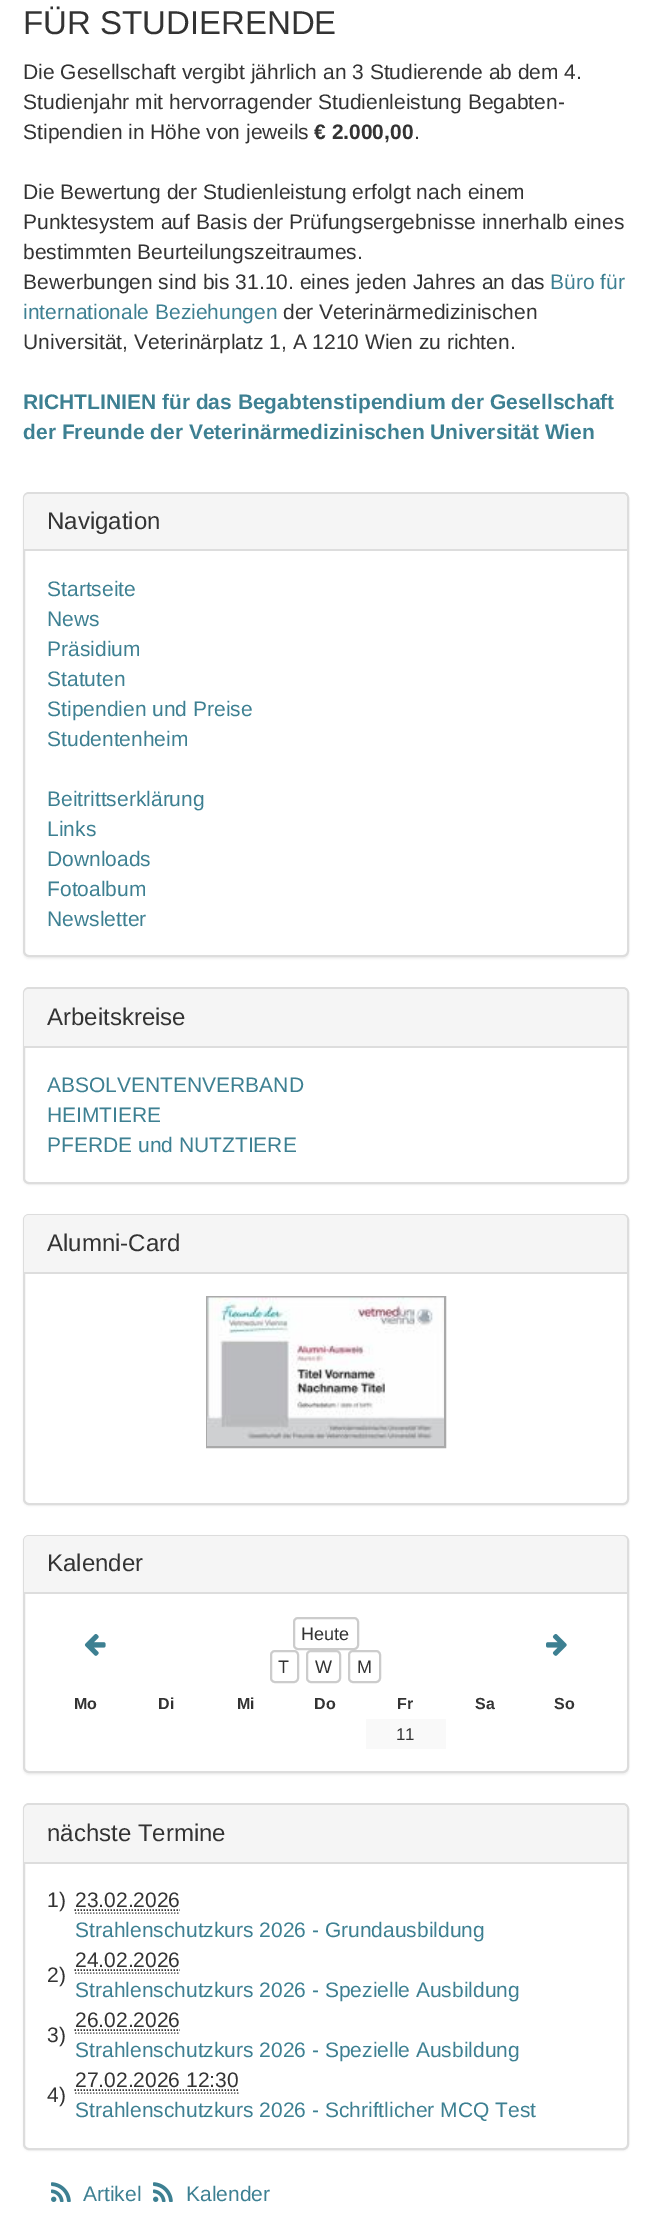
%!PS
<< /PageSize [650 2236] /PageUsesTransparency true >> setpagedevice
/mt/moveto load def
/li/lineto load def
/ct/curveto load def
/cp/closepath load def
/fl/fill load def
/st/stroke load def
/gs/gsave load def
/gr/grestore load def
/lw/setlinewidth load def
/co { dup -16 bitshift 255 div exch dup -8 bitshift 255 and 255 div exch 255 and 255 div setrgbcolor } def
/fn { [ exch dup neg 0 0 3 -1 roll 0 0 ] selectfont } def
/tx { co fn moveto show } def
/bx { co rectfill } def
/al { dup .setfillconstantalpha .setstrokeconstantalpha } def
/rr { 5 dict begin { /r /h /w /y /x } { exch def } forall
  x r add y moveto x w add y 2 copy h add r arct x w add y h add x 1 index r arct
  x y h add x y r arct x y 2 copy exch w add exch r arct closepath end } def
/sh { 12 dict begin { /a /b /q /h /w /y /x } { exch def } forall gsave /was 0 def
  9 -2 -9 { dup b mul 4 div /e exch def 1 sub .425 mul 2.718 exch exp 1 add a .99 .min exch div /now exch def
    1 1 now sub 1 was sub div sub al /was now def
    w h .min e 2 mul add 0 gt { x e sub y e sub w e 2 mul add h e 2 mul add
      q e add b .6 mul add w h .min 2 div e add .min 0 .max rr fill } if } for grestore end } def
/im { 5 dict begin { /h /w /y /x /name } { exch def } forall
  gsave x y translate w h scale
  w h 8 [w 0 0 h 0 0] name (r) file false 3 colorimage grestore end } def
0 .pushpdf14devicefilter
0 2236 translate 1 -1 scale
4 setmiterlimit
0 0 650 2236 16#FFFFFF bx
16#000000 co
23 494 606 465 6 1 .05 sh
16#FFFFFF co
24 493 604 463 5 rr gs fl gr
16#DDDDDD co
2 lw
st
16#F5F5F5 co
29 494 mt 622 494 li 625 494 627 496 627 499 ct 627 551 li 24 551 li 24 499 li 24 496 26 494 29 494 ct cp fl
24 549 603 2 16#DDDDDD bx
16#000000 co
23 989 606 196 6 1 .05 sh
16#FFFFFF co
24 988 604 195 5 rr gs fl gr
16#DDDDDD co
st
16#F5F5F5 co
29 989 mt 622 989 li 625 989 627 991 627 994 ct 627 1047 li 24 1047 li 24 994 li 24 991 26 989 29 989 ct cp fl
24 1046 603 2 16#DDDDDD bx
16#000000 co
23 1215 606 291 6 1 .05 sh
16#FFFFFF co
24 1215 604 289 5 rr gs fl gr
16#DDDDDD co
st
16#F5F5F5 co
29 1215 mt 622 1215 li 625 1215 627 1217 627 1220 ct 627 1274 li 24 1274 li 24 1220 li 24 1217 26 1215 29 1215 ct cp fl
24 1272 603 2 16#DDDDDD bx
16#A9A9A9 co
207 1297 238 150 rectstroke
(media/1.raw) 207 1297 237 149 im
16#000000 co
23 1536 606 239 6 1 .05 sh
16#FFFFFF co
24 1536 604 236 5 rr gs fl gr
16#DDDDDD co
st
16#F5F5F5 co
29 1536 mt 622 1536 li 625 1536 627 1538 627 1541 ct 627 1593 li 24 1593 li 24 1541 li 24 1538 26 1536 29 1536 ct cp fl
24 1592 603 2 16#DDDDDD bx
16#CCCCCC co
294 1618 64 31 4 rr st
(media/2.raw) 84 1634 22 22 im
(media/3.raw) 546 1634 21 22 im
271 1651 27 31 4 rr st
307 1651 33 31 4 rr st
349 1651 31 31 4 rr st
366 1719 80 30 16#F9F9F9 bx
16#000000 co
23 1805 606 346 6 1 .05 sh
16#FFFFFF co
24 1804 604 345 5 rr gs fl gr
16#DDDDDD co
st
16#F5F5F5 co
29 1805 mt 622 1805 li 625 1805 627 1807 627 1810 ct 627 1863 li 24 1863 li 24 1810 li 24 1807 26 1805 29 1805 ct cp fl
24 1862 603 2 16#DDDDDD bx
16#777777 co
1.5 lw
[1.5 1.5] 0 setdash
75 1913 mt 180 1913 li st
16#333333 co
74.5 1910 mt 180 1910 li st
16#777777 co
75 1973 mt 180 1973 li st
16#333333 co
74.5 1970 mt 180 1970 li st
16#777777 co
75 2033 mt 180 2033 li st
16#333333 co
74.5 2030 mt 180 2030 li st
16#777777 co
75 2093 mt 238.5 2093 li st
16#333333 co
74.5 2090 mt 238 2090 li st
(media/4.raw) 51 2182 20 20 im
(media/4.raw) 153 2182 20 20 im
(FÜR STUDIERENDE) 23 34 /LiberationSans-Regular 33 16#333333 tx
(Die Gesellschaft vergibt jährlich an 3 Studierende ab dem 4.) 23 79 /LiberationSans-Regular 21 16#333333 tx
(Studienjahr mit hervorragender Studienleistung Begabten-) 23 109 /LiberationSans-Regular 21 16#333333 tx
(Stipendien in Höhe von jeweils) 23 139 /LiberationSans-Regular 21 16#333333 tx
(€ 2.000,00) 314 139 /LiberationSans-Bold 21 16#333333 tx
(.) 414 139 /LiberationSans-Regular 21 16#333333 tx
(Die Bewertung der Studienleistung erfolgt nach einem) 23 199 /LiberationSans-Regular 21 16#333333 tx
(Punktesystem auf Basis der Prüfungsergebnisse innerhalb eines) 23 229 /LiberationSans-Regular 21 16#333333 tx
(bestimmten Beurteilungszeitraumes.) 23 259 /LiberationSans-Regular 21 16#333333 tx
(Bewerbungen sind bis 31.10. eines jeden Jahres an das) 23 289 /LiberationSans-Regular 21 16#333333 tx
(Büro für) 550 289 /LiberationSans-Regular 21 16#3D8092 tx
(internationale Beziehungen) 23 319 /LiberationSans-Regular 21 16#3D8092 tx
(der Veterinärmedizinischen) 283 319 /LiberationSans-Regular 21 16#333333 tx
(Universität, Veterinärplatz 1, A 1210 Wien zu richten.) 23 349 /LiberationSans-Regular 21 16#333333 tx
(RICHTLINIEN für das Begabtenstipendium der Gesellschaft) 23 409 /LiberationSans-Bold 21 16#3D8092 tx
(der Freunde der Veterinärmedizinischen Universität Wien) 23 439 /LiberationSans-Bold 21 16#3D8092 tx
(Navigation) 47 529 /LiberationSans-Regular 24 16#333333 tx
(Startseite) 47 596 /LiberationSans-Regular 21 16#3D8092 tx
(News) 47 626 /LiberationSans-Regular 21 16#3D8092 tx
(Präsidium) 47 656 /LiberationSans-Regular 21 16#3D8092 tx
(Statuten) 47 686 /LiberationSans-Regular 21 16#3D8092 tx
(Stipendien und Preise) 47 716 /LiberationSans-Regular 21 16#3D8092 tx
(Studentenheim) 47 746 /LiberationSans-Regular 21 16#3D8092 tx
(Beitrittserklärung) 47 806 /LiberationSans-Regular 21 16#3D8092 tx
(Links) 47 836 /LiberationSans-Regular 21 16#3D8092 tx
(Downloads) 47 866 /LiberationSans-Regular 21 16#3D8092 tx
(Fotoalbum) 47 896 /LiberationSans-Regular 21 16#3D8092 tx
(Newsletter) 47 926 /LiberationSans-Regular 21 16#3D8092 tx
(Arbeitskreise) 47 1025 /LiberationSans-Regular 24 16#333333 tx
(ABSOLVENTENVERBAND) 47 1092 /LiberationSans-Regular 21 16#3D8092 tx
(HEIMTIERE) 47 1122 /LiberationSans-Regular 21 16#3D8092 tx
(PFERDE und NUTZTIERE) 47 1152 /LiberationSans-Regular 21 16#3D8092 tx
(Alumni-Card) 47 1251 /LiberationSans-Regular 24 16#333333 tx
(Kalender) 47 1571 /LiberationSans-Regular 24 16#333333 tx
(Heute) 301 1640 /LiberationSans-Regular 18 16#333333 tx
(T) 278 1673 /LiberationSans-Regular 18 16#333333 tx
(W) 315 1673 /LiberationSans-Regular 18 16#333333 tx
(M) 357 1673 /LiberationSans-Regular 18 16#333333 tx
(Mo) 74 1709 /LiberationSans-Bold 16 16#333333 tx
(Di) 158 1709 /LiberationSans-Bold 16 16#333333 tx
(Mi) 237 1709 /LiberationSans-Bold 16 16#333333 tx
(Do) 314 1709 /LiberationSans-Bold 16 16#333333 tx
(Fr) 397 1709 /LiberationSans-Bold 16 16#333333 tx
(Sa) 475 1709 /LiberationSans-Bold 16 16#333333 tx
(So) 554 1709 /LiberationSans-Bold 16 16#333333 tx
(11) 396 1740 /LiberationSans-Regular 17 16#333333 tx
(nächste Termine) 47 1841 /LiberationSans-Regular 24 16#333333 tx
(1\)) 47 1907 /LiberationSans-Regular 21 16#333333 tx
(23.02.2026) 75 1907 /LiberationSans-Regular 21 16#333333 tx
(Strahlenschutzkurs 2026 - Grundausbildung) 75 1937 /LiberationSans-Regular 21 16#3D8092 tx
(2\)) 47 1982 /LiberationSans-Regular 21 16#333333 tx
(24.02.2026) 75 1967 /LiberationSans-Regular 21 16#333333 tx
(Strahlenschutzkurs 2026 - Spezielle Ausbildung) 75 1997 /LiberationSans-Regular 21 16#3D8092 tx
(3\)) 47 2042 /LiberationSans-Regular 21 16#333333 tx
(26.02.2026) 75 2027 /LiberationSans-Regular 21 16#333333 tx
(Strahlenschutzkurs 2026 - Spezielle Ausbildung) 75 2057 /LiberationSans-Regular 21 16#3D8092 tx
(4\)) 47 2102 /LiberationSans-Regular 21 16#333333 tx
(27.02.2026 12:30) 75 2087 /LiberationSans-Regular 21 16#333333 tx
(Strahlenschutzkurs 2026 - Schriftlicher MCQ Test) 75 2117 /LiberationSans-Regular 21 16#3D8092 tx
(Artikel) 83 2201 /LiberationSans-Regular 21 16#3D8092 tx
(Kalender) 186 2201 /LiberationSans-Regular 21 16#3D8092 tx
.poppdf14devicefilter showpage
